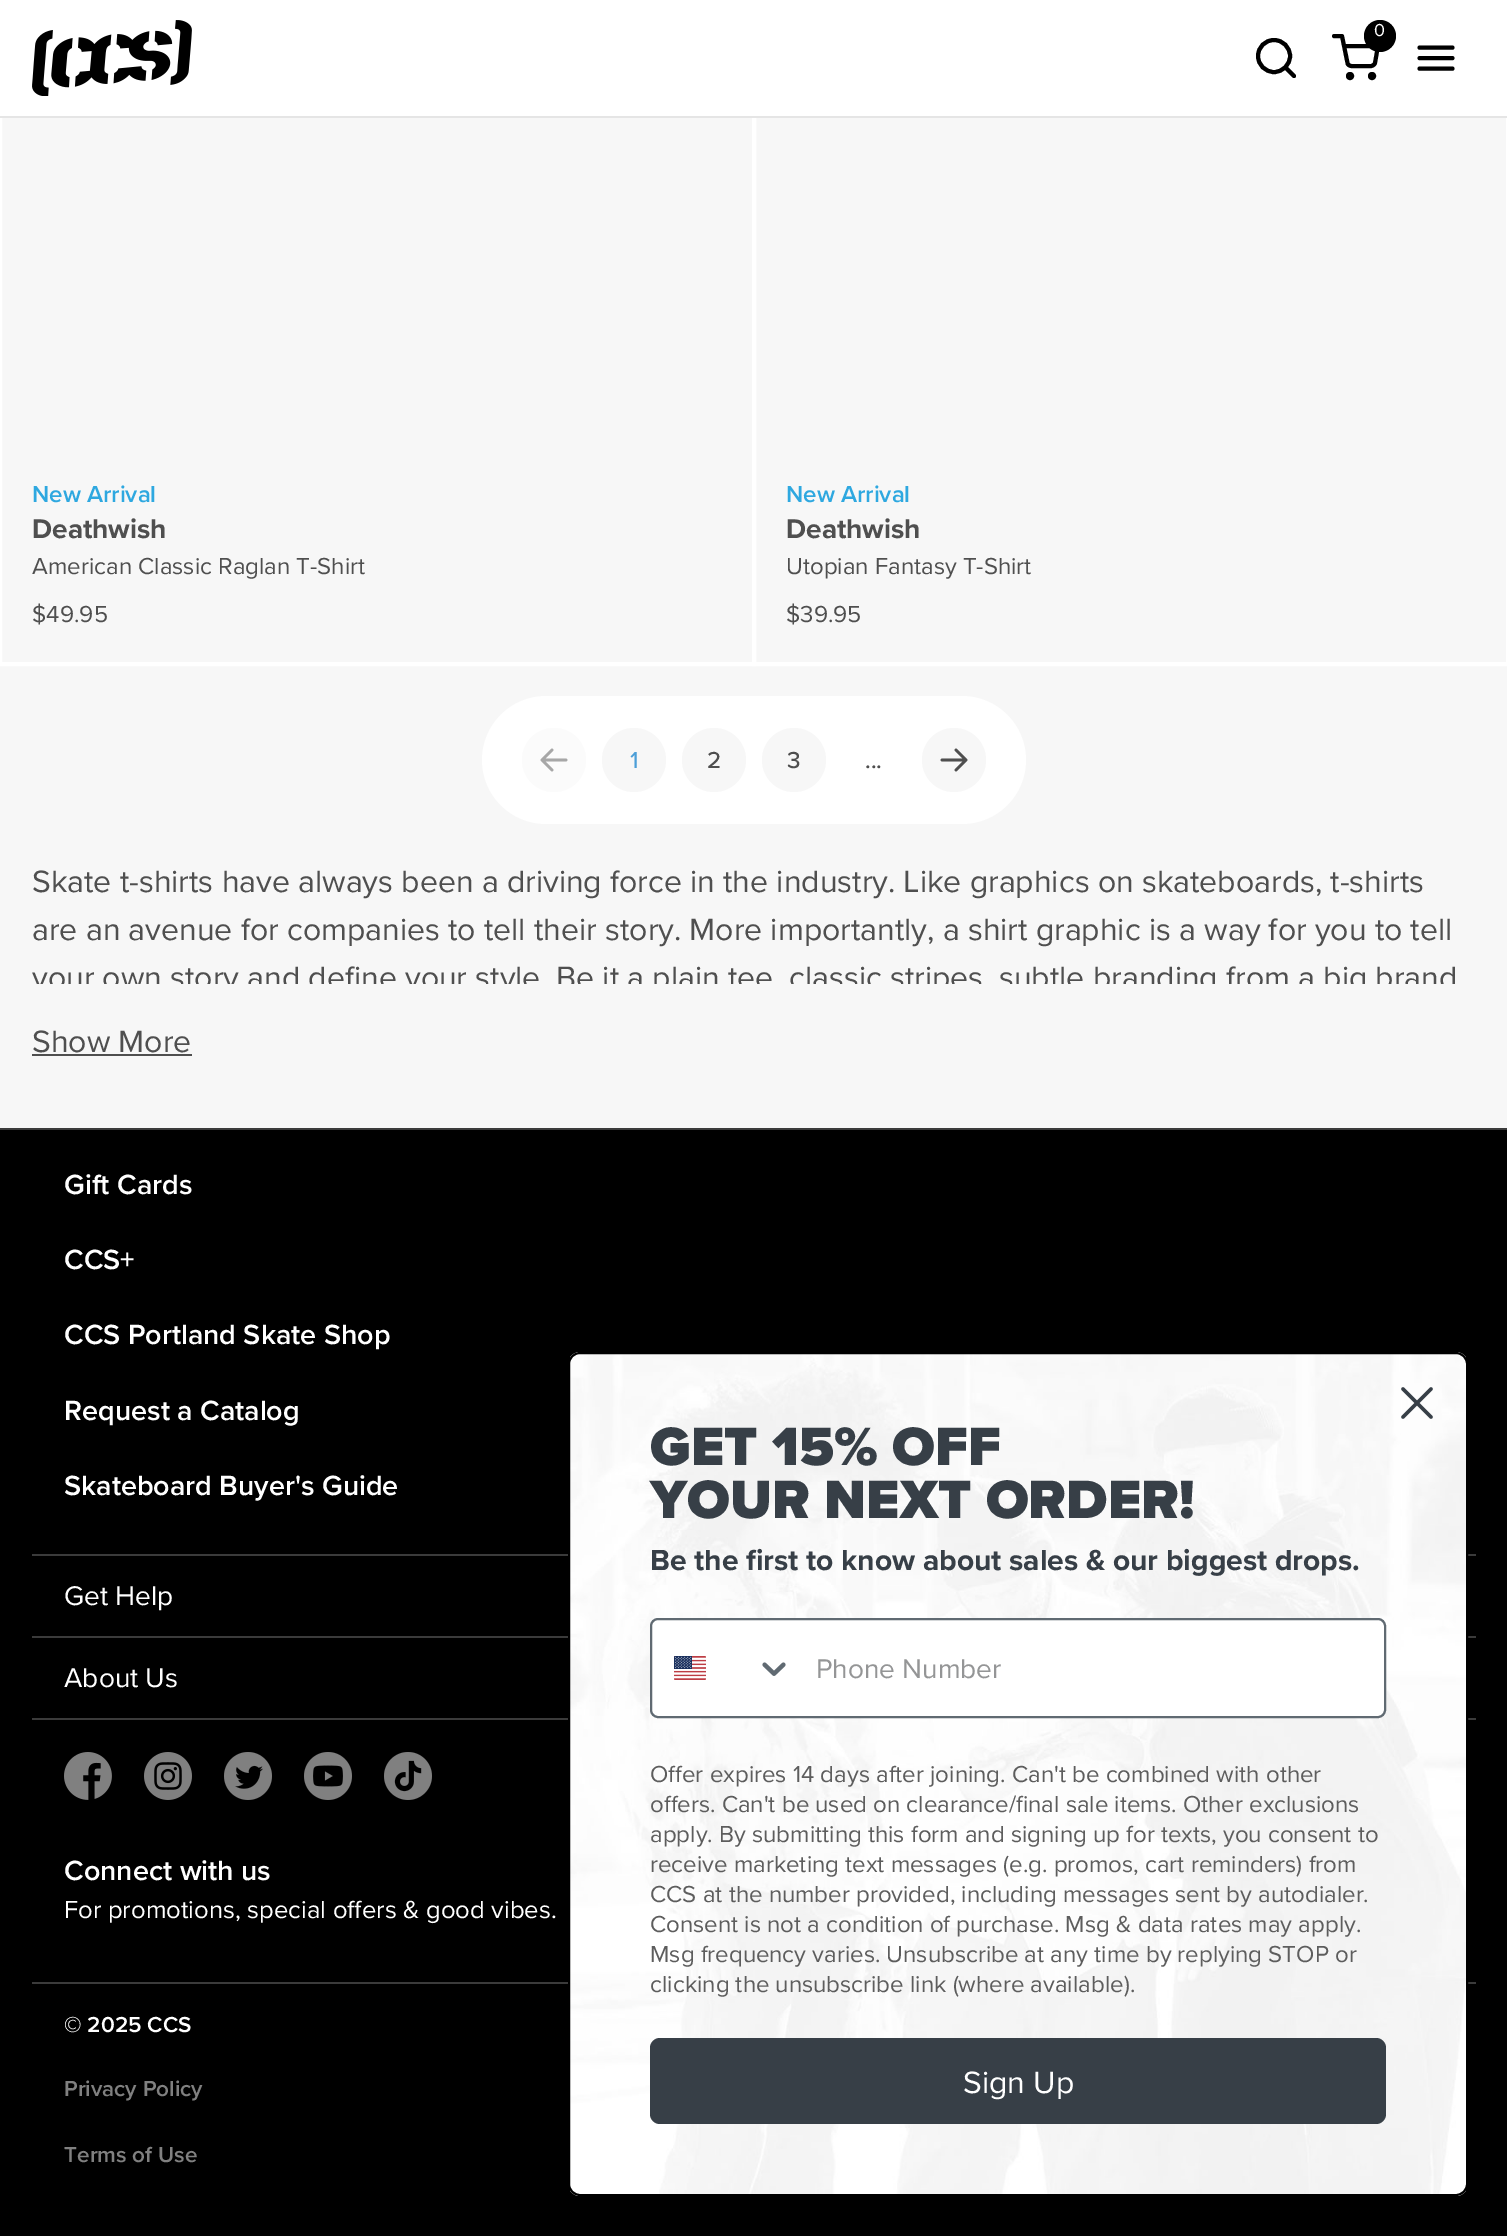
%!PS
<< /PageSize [1507 2236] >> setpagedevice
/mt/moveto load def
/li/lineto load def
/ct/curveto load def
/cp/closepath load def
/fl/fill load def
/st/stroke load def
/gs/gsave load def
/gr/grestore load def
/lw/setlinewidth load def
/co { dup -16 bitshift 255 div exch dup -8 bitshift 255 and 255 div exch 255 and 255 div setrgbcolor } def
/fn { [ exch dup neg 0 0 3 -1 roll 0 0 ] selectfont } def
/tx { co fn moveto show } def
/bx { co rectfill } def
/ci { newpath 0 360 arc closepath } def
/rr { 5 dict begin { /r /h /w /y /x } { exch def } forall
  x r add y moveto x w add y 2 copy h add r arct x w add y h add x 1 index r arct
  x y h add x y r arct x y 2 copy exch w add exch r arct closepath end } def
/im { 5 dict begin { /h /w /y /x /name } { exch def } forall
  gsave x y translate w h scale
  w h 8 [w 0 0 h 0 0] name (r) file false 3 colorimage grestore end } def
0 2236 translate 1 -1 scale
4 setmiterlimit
0 0 1507 2236 16#F7F7F7 bx
16#FFFFFF co
4 lw
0 -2 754 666 rectstroke
754 -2 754 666 rectstroke
2 0 1504 116 16#FFFFFF bx
0 116 1507 2 16#E5E5E5 bx
(media/1.raw) 32 20 160 76 im
16#000000 co
1 setlinecap
1 setlinejoin
1334 36 mt 1342 36 li 1347.5 63 li 1347.5 64.5 1349.5 66 1351.5 66 ct 1371 66 li 1372.5 66 1374.5 64.5 1375 63 ct 1378 46 li 1344 46 li st
1380 36 16 ci fl
0 setlinecap
0 setlinejoin
1350 76 2 ci st
1372 76 2 ci st
1274 56 16 ci st
1 setlinecap
1 setlinejoin
1294 76 mt 1285.5 67.5 li st
1419.5 47.5 mt 1452.5 47.5 li 1419.5 58 mt 1452.5 58 li 1419.5 68.5 mt 1452.5 68.5 li st
16#FFFFFF co
482 696 544 128 64 rr fl
16#FBFBFB co
554 760 32 ci fl
16#A7A7A7 co
2.7 lw
552 770 mt 542 760 li 542 760 mt 552 750 li 542 760 mt 566 760 li st
16#F7F7F7 co
634 760 32 ci fl
714 760 32 ci fl
794 760 32 ci fl
954 760 32 ci fl
16#4F4F4F co
956 750 mt 966 760 li 966 760 mt 956 770 li 966 760 mt 942 760 li st
32 1054 160 2 16#4F4F4F bx
0 1130 1507 1106 16#000000 bx
0 1128 1507 2 16#3B3B3B bx
32 1554 1444 2 16#3B3B3B bx
32 1636 1444 2 16#3B3B3B bx
32 1718 1444 2 16#3B3B3B bx
(media/2.raw) 64 1752 48 48 im
(media/3.raw) 144 1752 48 48 im
(media/4.raw) 224 1752 48 48 im
(media/5.raw) 304 1752 48 48 im
(media/6.raw) 384 1752 48 48 im
32 1982 1444 2 16#3B3B3B bx
(media/7.raw) 570 1352 896 844 im
16#000000 co
2 lw
0 setlinecap
0 setlinejoin
569 1353 898 842 11 rr st
16#373F47 co
3.5 lw
1 setlinecap
1 setlinejoin
1403 1389 mt 1431 1417 li 1403 1417 mt 1431 1389 li cp st
16#FFFFFF co
651 1619 734 98 7 rr gs fl gr
16#606A72 co
2 lw
0 setlinecap
0 setlinejoin
st
(media/8.raw) 674 1656 32 24 im
(media/9.raw) 762 1662 24 14 im
16#373F47 co
650 2038 736 86 10 rr fl
(0) 1374 36 /ProximaNova-Regular 18 16#FFFFFF tx
(New Arrival) 32 502 /ProximaNova-SemiBold 24 16#2EA8E0 tx
(Deathwish) 32 538 /ProximaNova-Bold 28 16#4F4F4F tx
(American Classic Raglan T-Shirt) 32 574 /ProximaNova-Regular 24 16#4F4F4F tx
($49.95) 32 622 /ProximaNova-Regular 24 16#4F4F4F tx
(New Arrival) 786 502 /ProximaNova-SemiBold 24 16#2EA8E0 tx
(Deathwish) 786 538 /ProximaNova-Bold 28 16#4F4F4F tx
(Utopian Fantasy T-Shirt) 786 574 /ProximaNova-Regular 24 16#4F4F4F tx
($39.95) 786 622 /ProximaNova-Regular 24 16#4F4F4F tx
(1) 630 768 /ProximaNova-Medium 24 16#4C9FD8 tx
(2) 707 768 /ProximaNova-Medium 24 16#4F4F4F tx
(3) 787 768 /ProximaNova-Medium 24 16#4F4F4F tx
(...) 865 768 /ProximaNova-Medium 24 16#4F4F4F tx
(Skate t-shirts have always been a driving force in the industry. Like graphics on skateboards, t-shirts) 32 892 /ProximaNova-Regular 32 16#4F4F4F tx
(are an avenue for companies to tell their story. More importantly, a shirt graphic is a way for you to tell) 32 940 /ProximaNova-Regular 32 16#4F4F4F tx
gs
32 856 1444 128 rectclip
(your own story and define your style. Be it a plain tee, classic stripes, subtle branding from a big brand) 32 988 /ProximaNova-Regular 32 16#4F4F4F tx
gr
(Show More) 32 1052 /ProximaNova-Regular 32 16#4F4F4F tx
(Gift Cards) 64 1194 /ProximaNova-SemiBold 28.75 16#FFFFFF tx
(CCS+) 64 1269 /ProximaNova-SemiBold 28.75 16#FFFFFF tx
(CCS Portland Skate Shop) 64 1344 /ProximaNova-SemiBold 28.75 16#FFFFFF tx
(Request a Catalog) 64 1420 /ProximaNova-SemiBold 28.75 16#FFFFFF tx
(Skateboard Buyer's Guide) 64 1495 /ProximaNova-SemiBold 28.75 16#FFFFFF tx
(Get Help) 64 1605 /ProximaNova-Regular 28 16#FFFFFF tx
(About Us) 64 1687 /ProximaNova-Regular 28 16#FFFFFF tx
(Connect with us) 64 1880 /ProximaNova-SemiBold 28.75 16#FFFFFF tx
(For promotions, special offers & good vibes.) 64 1918 /ProximaNova-Regular 25.6 16#FFFFFF tx
(© 2025 CCS) 64 2032 /ProximaNova-SemiBold 22.5 16#FFFFFF tx
(Privacy Policy) 64 2096 /ProximaNova-SemiBold 22.5 16#808080 tx
(Terms of Use) 64 2162 /ProximaNova-SemiBold 22.5 16#808080 tx
(GET 15% OFF) 650 1465 /ProximaNova-Black 56 16#373F47 tx
(YOUR NEXT ORDER!) 650 1518 /ProximaNova-Black 56 16#373F47 tx
(Be the first to know about sales & our biggest drops.) 650 1570 /ProximaNova-Bold 30 16#373F47 tx
(Phone Number) 816 1678 /ProximaNova-Regular 28 16#949596 tx
(Offer expires 14 days after joining. Can't be combined with other) 650 1782 /ProximaNova-Regular 24 16#5D5D5D tx
(offers. Can't be used on clearance/final sale items. Other exclusions) 650 1812 /ProximaNova-Regular 24 16#5D5D5D tx
(apply. By submitting this form and signing up for texts, you consent to) 650 1842 /ProximaNova-Regular 24 16#5D5D5D tx
(receive marketing text messages \(e.g. promos, cart reminders\) from) 650 1872 /ProximaNova-Regular 24 16#5D5D5D tx
(CCS at the number provided, including messages sent by autodialer.) 650 1902 /ProximaNova-Regular 24 16#5D5D5D tx
(Consent is not a condition of purchase. Msg & data rates may apply.) 650 1932 /ProximaNova-Regular 24 16#5D5D5D tx
(Msg frequency varies. Unsubscribe at any time by replying STOP or) 650 1962 /ProximaNova-Regular 24 16#5D5D5D tx
(clicking the unsubscribe link \(where available\).) 650 1992 /ProximaNova-Regular 24 16#5D5D5D tx
(Sign Up) 963 2093 /ProximaNova-Regular 32 16#FFFFFF tx
showpage
